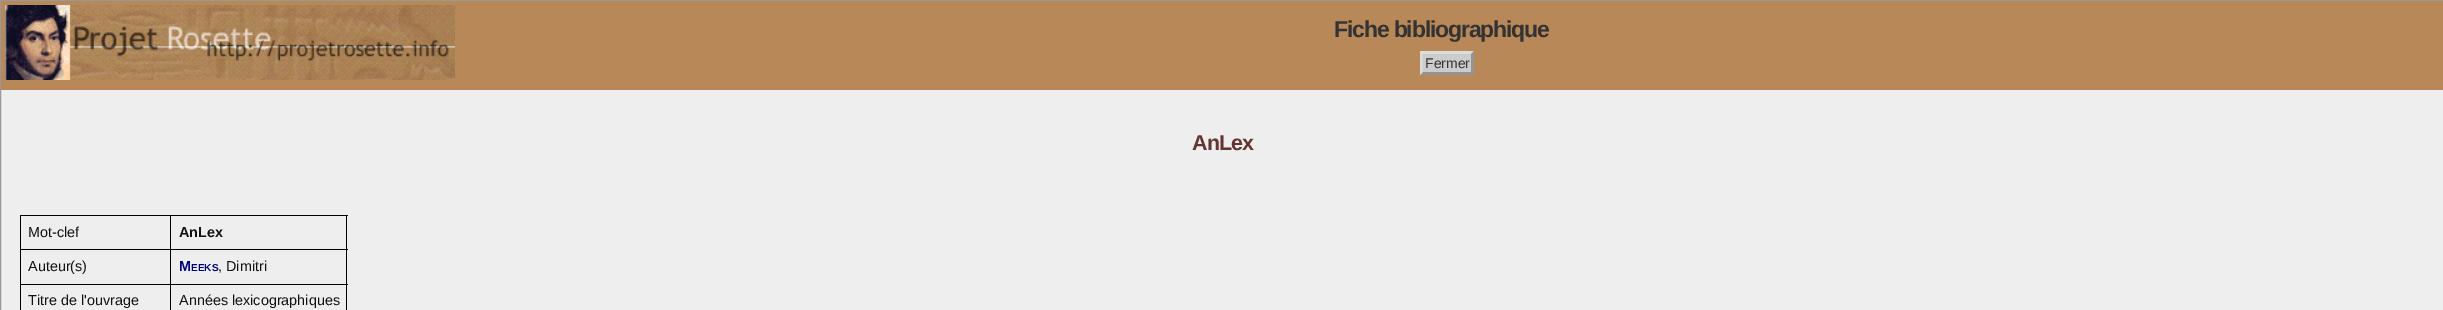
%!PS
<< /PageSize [2443 310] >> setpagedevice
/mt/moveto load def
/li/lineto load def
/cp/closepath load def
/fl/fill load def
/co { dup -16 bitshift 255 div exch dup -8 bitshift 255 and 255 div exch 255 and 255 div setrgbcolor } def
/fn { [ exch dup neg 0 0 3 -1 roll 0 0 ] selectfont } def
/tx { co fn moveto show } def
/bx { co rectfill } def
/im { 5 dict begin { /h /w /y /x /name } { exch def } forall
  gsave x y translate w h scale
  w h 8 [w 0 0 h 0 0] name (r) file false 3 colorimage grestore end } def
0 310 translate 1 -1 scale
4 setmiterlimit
0 0 2443 310 16#EEEEEE bx
16#999999 co
.5 .5 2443 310 rectstroke
1 1 2442 89 16#B98859 bx
(media/1.raw) 5 5 450 75 im
1420 51 54 24 16#CCCCCC bx
16#DDDDDD co
1420 51 mt 1474 51 li 1471 54 li 1422 54 li cp fl
16#939393 co
1474 51 mt 1474 75 li 1471 72.5 li 1471 54 li cp fl
1474 75 mt 1420 75 li 1422 72 li 1471 72 li cp fl
16#DDDDDD co
1420 75 mt 1420 51 li 1422.5 54 li 1422.5 72.5 li cp fl
170 215 178 1 16#000000 bx
170 249 178 1 16#000000 bx
170 284 178 1 16#000000 bx
170 284 1 26 16#000000 bx
20 284 151 1 16#000000 bx
170 249 1 36 16#000000 bx
20 249 151 1 16#000000 bx
170 215 1 35 16#000000 bx
20 215 151 1 16#000000 bx
20 284 1 26 16#000000 bx
20 249 1 36 16#000000 bx
20 215 1 35 16#000000 bx
346 284 1 26 16#000000 bx
346 249 1 36 16#000000 bx
346 215 1 35 16#000000 bx
/LiberationSans-Bold 23 fn
16#333333 co
1334 37 mt -1.15 0 (Fiche bibliographique) ashow
(Fermer) 1425 68 /LiberationSans-Regular 14 16#333333 tx
/LiberationSans-Bold 21.5 fn
16#663333 co
1192 150 mt -1 0 (AnLex) ashow
(Mot-clef) 28 237 /LiberationSans-Regular 14.4 16#111111 tx
(AnLex) 179 237 /LiberationSans-Bold 14.4 16#111111 tx
(Auteur\(s\)) 28 271 /LiberationSans-Regular 14.4 16#111111 tx
(M) 179 271 /LiberationSans-Bold 14.4 16#000080 tx
(EEKS) 191 271 /LiberationSans-Bold 10 16#000080 tx
(, Dimitri) 218 271 /LiberationSans-Regular 14.4 16#111111 tx
(Titre de l'ouvrage) 28 305 /LiberationSans-Regular 14.4 16#111111 tx
(Années lexicographiques) 179 305 /LiberationSans-Regular 14.4 16#111111 tx
showpage
